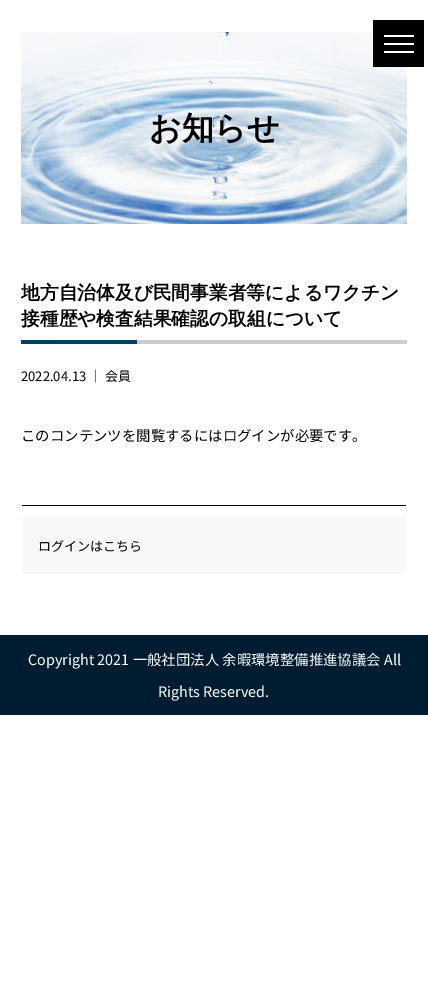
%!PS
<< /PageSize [428 1001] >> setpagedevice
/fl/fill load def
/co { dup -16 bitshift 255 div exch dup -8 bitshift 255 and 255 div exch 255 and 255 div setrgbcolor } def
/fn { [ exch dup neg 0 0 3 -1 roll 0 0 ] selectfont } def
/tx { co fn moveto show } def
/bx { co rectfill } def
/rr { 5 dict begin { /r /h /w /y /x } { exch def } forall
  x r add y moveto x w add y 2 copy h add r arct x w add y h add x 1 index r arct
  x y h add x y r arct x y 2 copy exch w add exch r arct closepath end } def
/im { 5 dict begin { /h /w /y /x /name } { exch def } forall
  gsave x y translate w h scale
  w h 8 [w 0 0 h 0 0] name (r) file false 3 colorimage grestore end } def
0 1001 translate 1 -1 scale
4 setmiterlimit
0 0 428 1001 16#FFFFFF bx
(media/1.raw) 21 32 386 192 im
373 20 51 47 16#000000 bx
16#FFFFFF co
384 35 30 2 1 rr fl
384 43 30 2 1 rr fl
384 51 30 2 1 rr fl
137 340 270 4 16#CCCCCC bx
21 340 116 4 16#003E6C bx
22 505 384 1 16#000000 bx
22 517 384 57 16#F8F8F8 bx
0 635 428 80 16#001C31 bx
(お知らせ) 149 139 /WenQuanYiZenHei-Bold 32 16#000000 tx
(地方自治体及び民間事業者等によるワクチン) 21 299 /WenQuanYiZenHei-Bold 18.75 16#000000 tx
(接種歴や検査結果確認の取組について) 21 325 /WenQuanYiZenHei-Bold 18.75 16#000000 tx
(2022.04.13 ｜ 会員) 21 381 /NotoSansJP-Regular 13 16#000000 tx
(このコンテンツを閲覧するにはログインが必要です。) 21 441 /NotoSansJP-Regular 14.4 16#000000 tx
(ログインはこちら) 38 551 /NotoSansJP-Regular 13 16#000000 tx
(Copyright 2021 一般社団法人 余暇環境整備推進協議会 All) 28 665 /NotoSansJP-Regular 14.4 16#FFFFFF tx
(Rights Reserved.) 158 697 /NotoSansJP-Regular 14.4 16#FFFFFF tx
showpage
